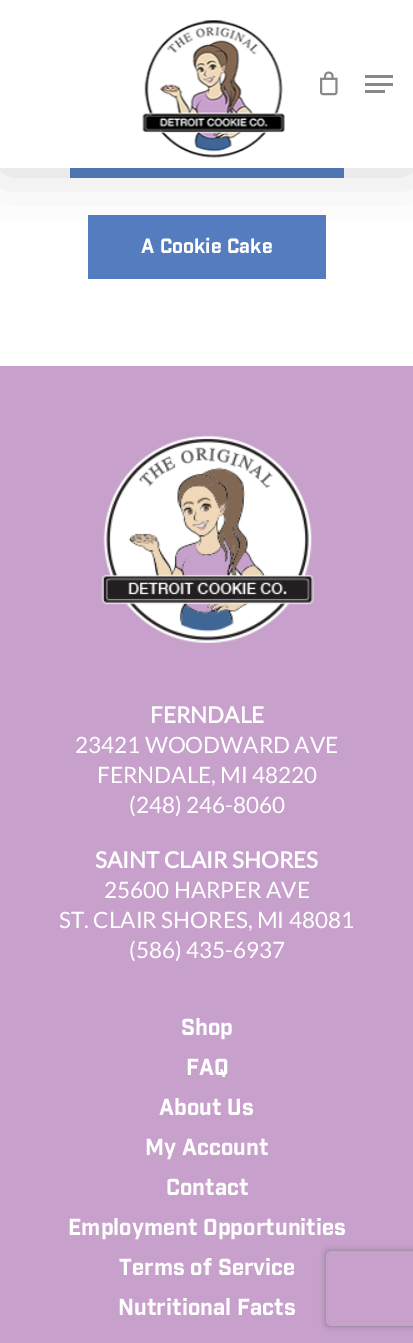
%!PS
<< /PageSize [413 1343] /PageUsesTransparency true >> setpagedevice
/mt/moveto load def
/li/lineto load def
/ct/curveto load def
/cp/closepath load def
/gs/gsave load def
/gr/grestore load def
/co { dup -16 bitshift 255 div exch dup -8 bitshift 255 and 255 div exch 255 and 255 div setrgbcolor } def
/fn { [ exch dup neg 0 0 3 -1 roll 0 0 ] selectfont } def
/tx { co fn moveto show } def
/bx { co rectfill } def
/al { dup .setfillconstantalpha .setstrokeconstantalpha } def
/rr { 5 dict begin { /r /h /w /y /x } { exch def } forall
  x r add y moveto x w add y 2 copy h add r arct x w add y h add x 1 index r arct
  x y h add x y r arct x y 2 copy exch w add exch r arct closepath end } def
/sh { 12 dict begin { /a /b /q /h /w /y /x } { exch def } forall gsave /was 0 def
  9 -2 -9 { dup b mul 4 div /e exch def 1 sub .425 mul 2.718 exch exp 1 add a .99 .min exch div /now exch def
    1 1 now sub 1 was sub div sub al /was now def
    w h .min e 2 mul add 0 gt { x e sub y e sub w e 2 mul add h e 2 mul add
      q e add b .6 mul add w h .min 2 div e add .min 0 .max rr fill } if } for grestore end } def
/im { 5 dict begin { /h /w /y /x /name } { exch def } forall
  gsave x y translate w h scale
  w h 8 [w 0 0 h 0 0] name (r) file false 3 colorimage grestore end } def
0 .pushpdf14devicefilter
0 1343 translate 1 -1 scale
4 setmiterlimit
0 0 413 1343 16#FFFFFF bx
70 168 274 10 16#557CBF bx
88 215 238 64 16#557CBF bx
16#000000 co
0 -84 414 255 0 28 .15 sh
0 0 413 168 16#FFFFFF bx
(media/1.raw) 142 20 143 138 im
(media/2.raw) 320 71 18 25 im
365 75 28 3 16#888888 bx
365 90 20 3 16#888888 bx
365 83 28 3 16#888888 bx
0 366 413 977 16#C7A0CB bx
(media/3.raw) 101 435 213 208 im
gs
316 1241 mt 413 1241 li 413 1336 li 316 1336 li cp 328.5 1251 mt 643.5 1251 li 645 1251 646 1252 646 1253.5 ct 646 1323.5 li 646 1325 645 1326 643.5 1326 ct 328.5 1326 li 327 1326 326 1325 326 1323.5 ct 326 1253.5 li 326 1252 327 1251 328.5 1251 ct cp eoclip newpath
16#808080 co
326 1251 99 75 2.5 3 1 sh
gr
(A Cookie Cake) 141 253 /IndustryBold-Bold 20 16#FFFFFF tx
(FERNDALE) 150 723 /Lato-Bold 22.5 16#FFFFFF tx
(23421 WOODWARD AVE) 75 753 /Lato-Regular 22.5 16#FFFFFF tx
(FERNDALE, MI 48220) 97 783 /Lato-Regular 22.5 16#FFFFFF tx
(\(248\) 246-8060) 129 813 /Lato-Regular 22.5 16#FFFFFF tx
(SAINT CLAIR SHORES) 95 868 /Lato-Bold 22.5 16#FFFFFF tx
(25600 HARPER AVE) 104 898 /Lato-Regular 22.5 16#FFFFFF tx
(ST. CLAIR SHORES, MI 48081) 59 928 /Lato-Regular 22.5 16#FFFFFF tx
(\(586\) 435-6937) 129 958 /Lato-Regular 22.5 16#FFFFFF tx
(Shop) 181 1035 /IndustryBold-Bold 22.5 16#FFFFFF tx
(FAQ) 186 1075 /IndustryBold-Bold 22.5 16#FFFFFF tx
(About Us) 159 1115 /IndustryBold-Bold 22.5 16#FFFFFF tx
(My Account) 145 1155 /IndustryBold-Bold 22.5 16#FFFFFF tx
(Contact) 166 1195 /IndustryBold-Bold 22.5 16#FFFFFF tx
(Employment Opportunities) 68 1235 /IndustryBold-Bold 22.5 16#FFFFFF tx
(Terms of Service) 119 1275 /IndustryBold-Bold 22.5 16#FFFFFF tx
(Nutritional Facts) 118 1315 /IndustryBold-Bold 22.5 16#FFFFFF tx
.poppdf14devicefilter showpage
